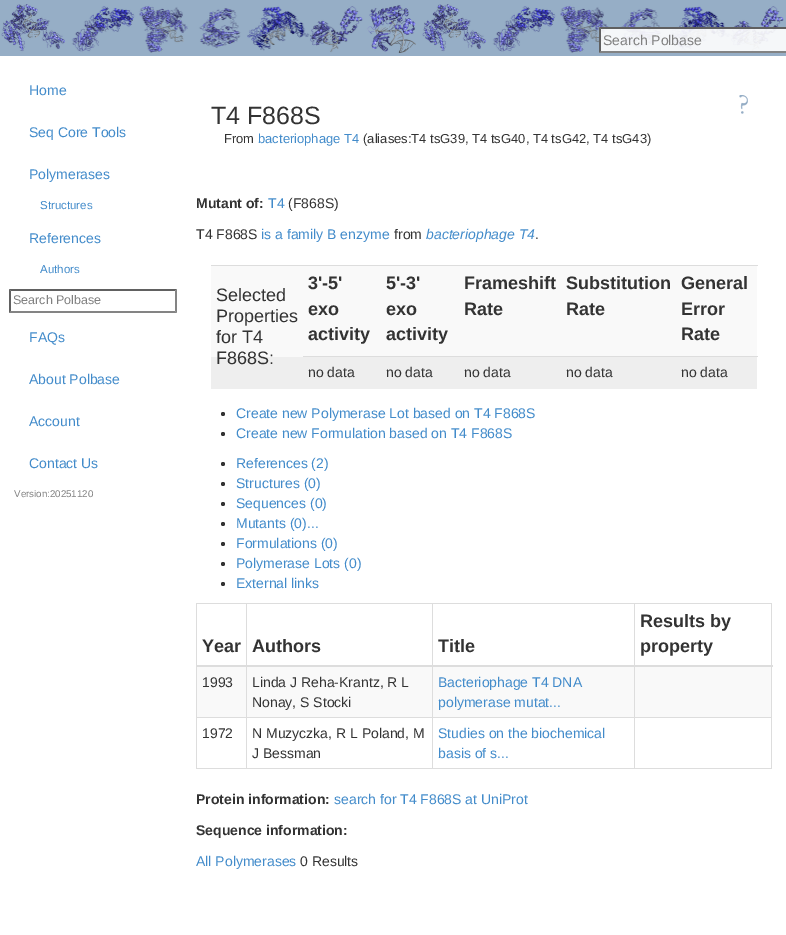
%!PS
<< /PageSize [786 935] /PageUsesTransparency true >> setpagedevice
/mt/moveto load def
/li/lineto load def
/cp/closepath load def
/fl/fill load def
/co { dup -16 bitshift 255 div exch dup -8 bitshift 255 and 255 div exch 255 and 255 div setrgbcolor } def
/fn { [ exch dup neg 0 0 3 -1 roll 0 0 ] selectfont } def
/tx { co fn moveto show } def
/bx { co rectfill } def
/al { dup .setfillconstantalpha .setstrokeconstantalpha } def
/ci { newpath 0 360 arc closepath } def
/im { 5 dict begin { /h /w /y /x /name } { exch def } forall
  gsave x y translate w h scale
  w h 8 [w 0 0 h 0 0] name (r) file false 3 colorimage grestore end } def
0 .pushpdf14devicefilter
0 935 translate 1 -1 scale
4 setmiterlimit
0 0 786 935 16#FFFFFF bx
0 0 786 56 16#96AEC6 bx
(media/1.raw) 1 4 783 49 im
0.9 al
599 27 187 26 16#FFFFFF bx
16#4F4F4F co
599 27 mt 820 27 li 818 29 li 601 29 li cp fl
16#767676 co
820 53 mt 599 53 li 601 51 li 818 51 li cp fl
16#4F4F4F co
599 53 mt 599 27 li 601 29 li 601 51 li cp fl
1 al
16#616161 co
9 289 mt 177 289 li 175 291 li 11 291 li cp fl
16#848484 co
177 289 mt 177 313 li 175 311 li 175 291 li cp fl
177 313 mt 9 313 li 11 311 li 175 311 li cp fl
16#616161 co
9 313 mt 9 289 li 11 291 li 11 311 li cp fl
(media/2.raw) 739 95 9 19 im
211 266 546 91 16#F9F9F9 bx
211 265 547 1 16#DDDDDD bx
211 357 546 32 16#EEEEEE bx
303 356 455 1 16#DDDDDD bx
16#333333 co
223 414 2 ci fl
223 434 2 ci fl
223 464 2 ci fl
223 484 2 ci fl
223 504 2 ci fl
223 524 2 ci fl
223 544 2 ci fl
223 564 2 ci fl
223 584 2 ci fl
196 603 576 1 16#DDDDDD bx
771 603 1 166 16#DDDDDD bx
196 768 576 1 16#DDDDDD bx
196 603 1 166 16#DDDDDD bx
197 667 574 50 16#F9F9F9 bx
634 717 138 1 16#DDDDDD bx
634 717 1 52 16#DDDDDD bx
432 717 203 1 16#DDDDDD bx
432 717 1 52 16#DDDDDD bx
246 717 187 1 16#DDDDDD bx
246 717 1 52 16#DDDDDD bx
196 717 51 1 16#DDDDDD bx
246 603 1 115 16#DDDDDD bx
432 603 1 115 16#DDDDDD bx
634 603 1 115 16#DDDDDD bx
196 665 577 2 16#DDDDDD bx
(Search Polbase) 603 45 /LiberationSans-Regular 14 16#808080 tx
(Home) 29 95 /LiberationSans-Regular 14 16#428BCA tx
(Seq Core Tools) 29 137 /LiberationSans-Regular 14 16#428BCA tx
(Polymerases) 29 179 /LiberationSans-Regular 14 16#428BCA tx
(Structures) 40 209 /LiberationSans-Regular 11.5 16#428BCA tx
(References) 29 243 /LiberationSans-Regular 14 16#428BCA tx
(Authors) 40 273 /LiberationSans-Regular 11.5 16#428BCA tx
(Search Polbase) 13 304 /LiberationSans-Regular 12.5 16#808080 tx
(FAQs) 29 342 /LiberationSans-Regular 14 16#428BCA tx
(About Polbase) 29 384 /LiberationSans-Regular 14 16#428BCA tx
(Account) 29 426 /LiberationSans-Regular 14 16#428BCA tx
(Contact Us) 29 468 /LiberationSans-Regular 14 16#428BCA tx
(Version:20251120) 14 497 /LiberationSans-Regular 9.75 16#808080 tx
(T4 F868S) 211 124 /LiberationSans-Regular 25 16#333333 tx
(From) 224 143 /LiberationSans-Regular 13 16#333333 tx
(bacteriophage T4) 258 143 /LiberationSans-Regular 13 16#428BCA tx
(\(aliases:T4 tsG39, T4 tsG40, T4 tsG42, T4 tsG43\)) 363 143 /LiberationSans-Regular 13 16#333333 tx
(Mutant of:) 196 208 /LiberationSans-Bold 14 16#333333 tx
(T4) 268 208 /LiberationSans-Regular 14 16#428BCA tx
(\(F868S\)) 288 208 /LiberationSans-Regular 14 16#333333 tx
(T4 F868S) 196 239 /LiberationSans-Regular 14 16#333333 tx
(is a family B enzyme) 261 239 /LiberationSans-Regular 14 16#428BCA tx
(from) 394 239 /LiberationSans-Regular 14 16#333333 tx
(bacteriophage T4) 426 239 /LiberationSans-Italic 14 16#428BCA tx
(.) 535 239 /LiberationSans-Regular 14 16#333333 tx
(Selected) 216 301 /LiberationSans-Regular 18 16#333333 tx
(Properties) 216 322 /LiberationSans-Regular 18 16#333333 tx
(for T4) 216 343 /LiberationSans-Regular 18 16#333333 tx
(F868S:) 216 364 /LiberationSans-Regular 18 16#333333 tx
(3'-5') 308 289 /LiberationSans-Bold 18 16#333333 tx
(exo) 308 315 /LiberationSans-Bold 18 16#333333 tx
(activity) 308 340 /LiberationSans-Bold 18 16#333333 tx
(5'-3') 386 289 /LiberationSans-Bold 18 16#333333 tx
(exo) 386 315 /LiberationSans-Bold 18 16#333333 tx
(activity) 386 340 /LiberationSans-Bold 18 16#333333 tx
(Frameshift) 464 289 /LiberationSans-Bold 18 16#333333 tx
(Rate) 464 315 /LiberationSans-Bold 18 16#333333 tx
(Substitution) 566 289 /LiberationSans-Bold 18 16#333333 tx
(Rate) 566 315 /LiberationSans-Bold 18 16#333333 tx
(General) 681 289 /LiberationSans-Bold 18 16#333333 tx
(Error) 681 315 /LiberationSans-Bold 18 16#333333 tx
(Rate) 681 340 /LiberationSans-Bold 18 16#333333 tx
(no data) 308 377 /LiberationSans-Regular 14 16#333333 tx
(no data) 386 377 /LiberationSans-Regular 14 16#333333 tx
(no data) 464 377 /LiberationSans-Regular 14 16#333333 tx
(no data) 566 377 /LiberationSans-Regular 14 16#333333 tx
(no data) 681 377 /LiberationSans-Regular 14 16#333333 tx
(Create new Polymerase Lot based on T4 F868S) 236 418 /LiberationSans-Regular 14 16#428BCA tx
(Create new Formulation based on T4 F868S) 236 438 /LiberationSans-Regular 14 16#428BCA tx
(References \(2\)) 236 468 /LiberationSans-Regular 14 16#428BCA tx
(Structures \(0\)) 236 488 /LiberationSans-Regular 14 16#428BCA tx
(Sequences \(0\)) 236 508 /LiberationSans-Regular 14 16#428BCA tx
(Mutants \(0\)...) 236 528 /LiberationSans-Regular 14 16#428BCA tx
(Formulations \(0\)) 236 548 /LiberationSans-Regular 14 16#428BCA tx
(Polymerase Lots \(0\)) 236 568 /LiberationSans-Regular 14 16#428BCA tx
(External links) 236 588 /LiberationSans-Regular 14 16#428BCA tx
(Year) 202 652 /LiberationSans-Bold 18 16#333333 tx
(Authors) 252 652 /LiberationSans-Bold 18 16#333333 tx
(Title) 438 652 /LiberationSans-Bold 18 16#333333 tx
(Results by) 640 627 /LiberationSans-Bold 18 16#333333 tx
(property) 640 652 /LiberationSans-Bold 18 16#333333 tx
(1993) 202 687 /LiberationSans-Regular 14 16#333333 tx
(Linda J Reha-Krantz, R L) 252 687 /LiberationSans-Regular 14 16#333333 tx
(Nonay, S Stocki) 252 707 /LiberationSans-Regular 14 16#333333 tx
(Bacteriophage T4 DNA) 438 687 /LiberationSans-Regular 14 16#428BCA tx
(polymerase mutat...) 438 707 /LiberationSans-Regular 14 16#428BCA tx
(1972) 202 738 /LiberationSans-Regular 14 16#333333 tx
(N Muzyczka, R L Poland, M) 252 738 /LiberationSans-Regular 14 16#333333 tx
(J Bessman) 252 758 /LiberationSans-Regular 14 16#333333 tx
(Studies on the biochemical) 438 738 /LiberationSans-Regular 14 16#428BCA tx
(basis of s...) 438 758 /LiberationSans-Regular 14 16#428BCA tx
(Protein information:) 196 804 /LiberationSans-Bold 14 16#333333 tx
(search for T4 F868S at UniProt) 334 804 /LiberationSans-Regular 14 16#428BCA tx
(Sequence information:) 196 835 /LiberationSans-Bold 14 16#333333 tx
(All Polymerases) 196 866 /LiberationSans-Regular 14 16#428BCA tx
(0 Results) 300 866 /LiberationSans-Regular 14 16#333333 tx
.poppdf14devicefilter showpage
